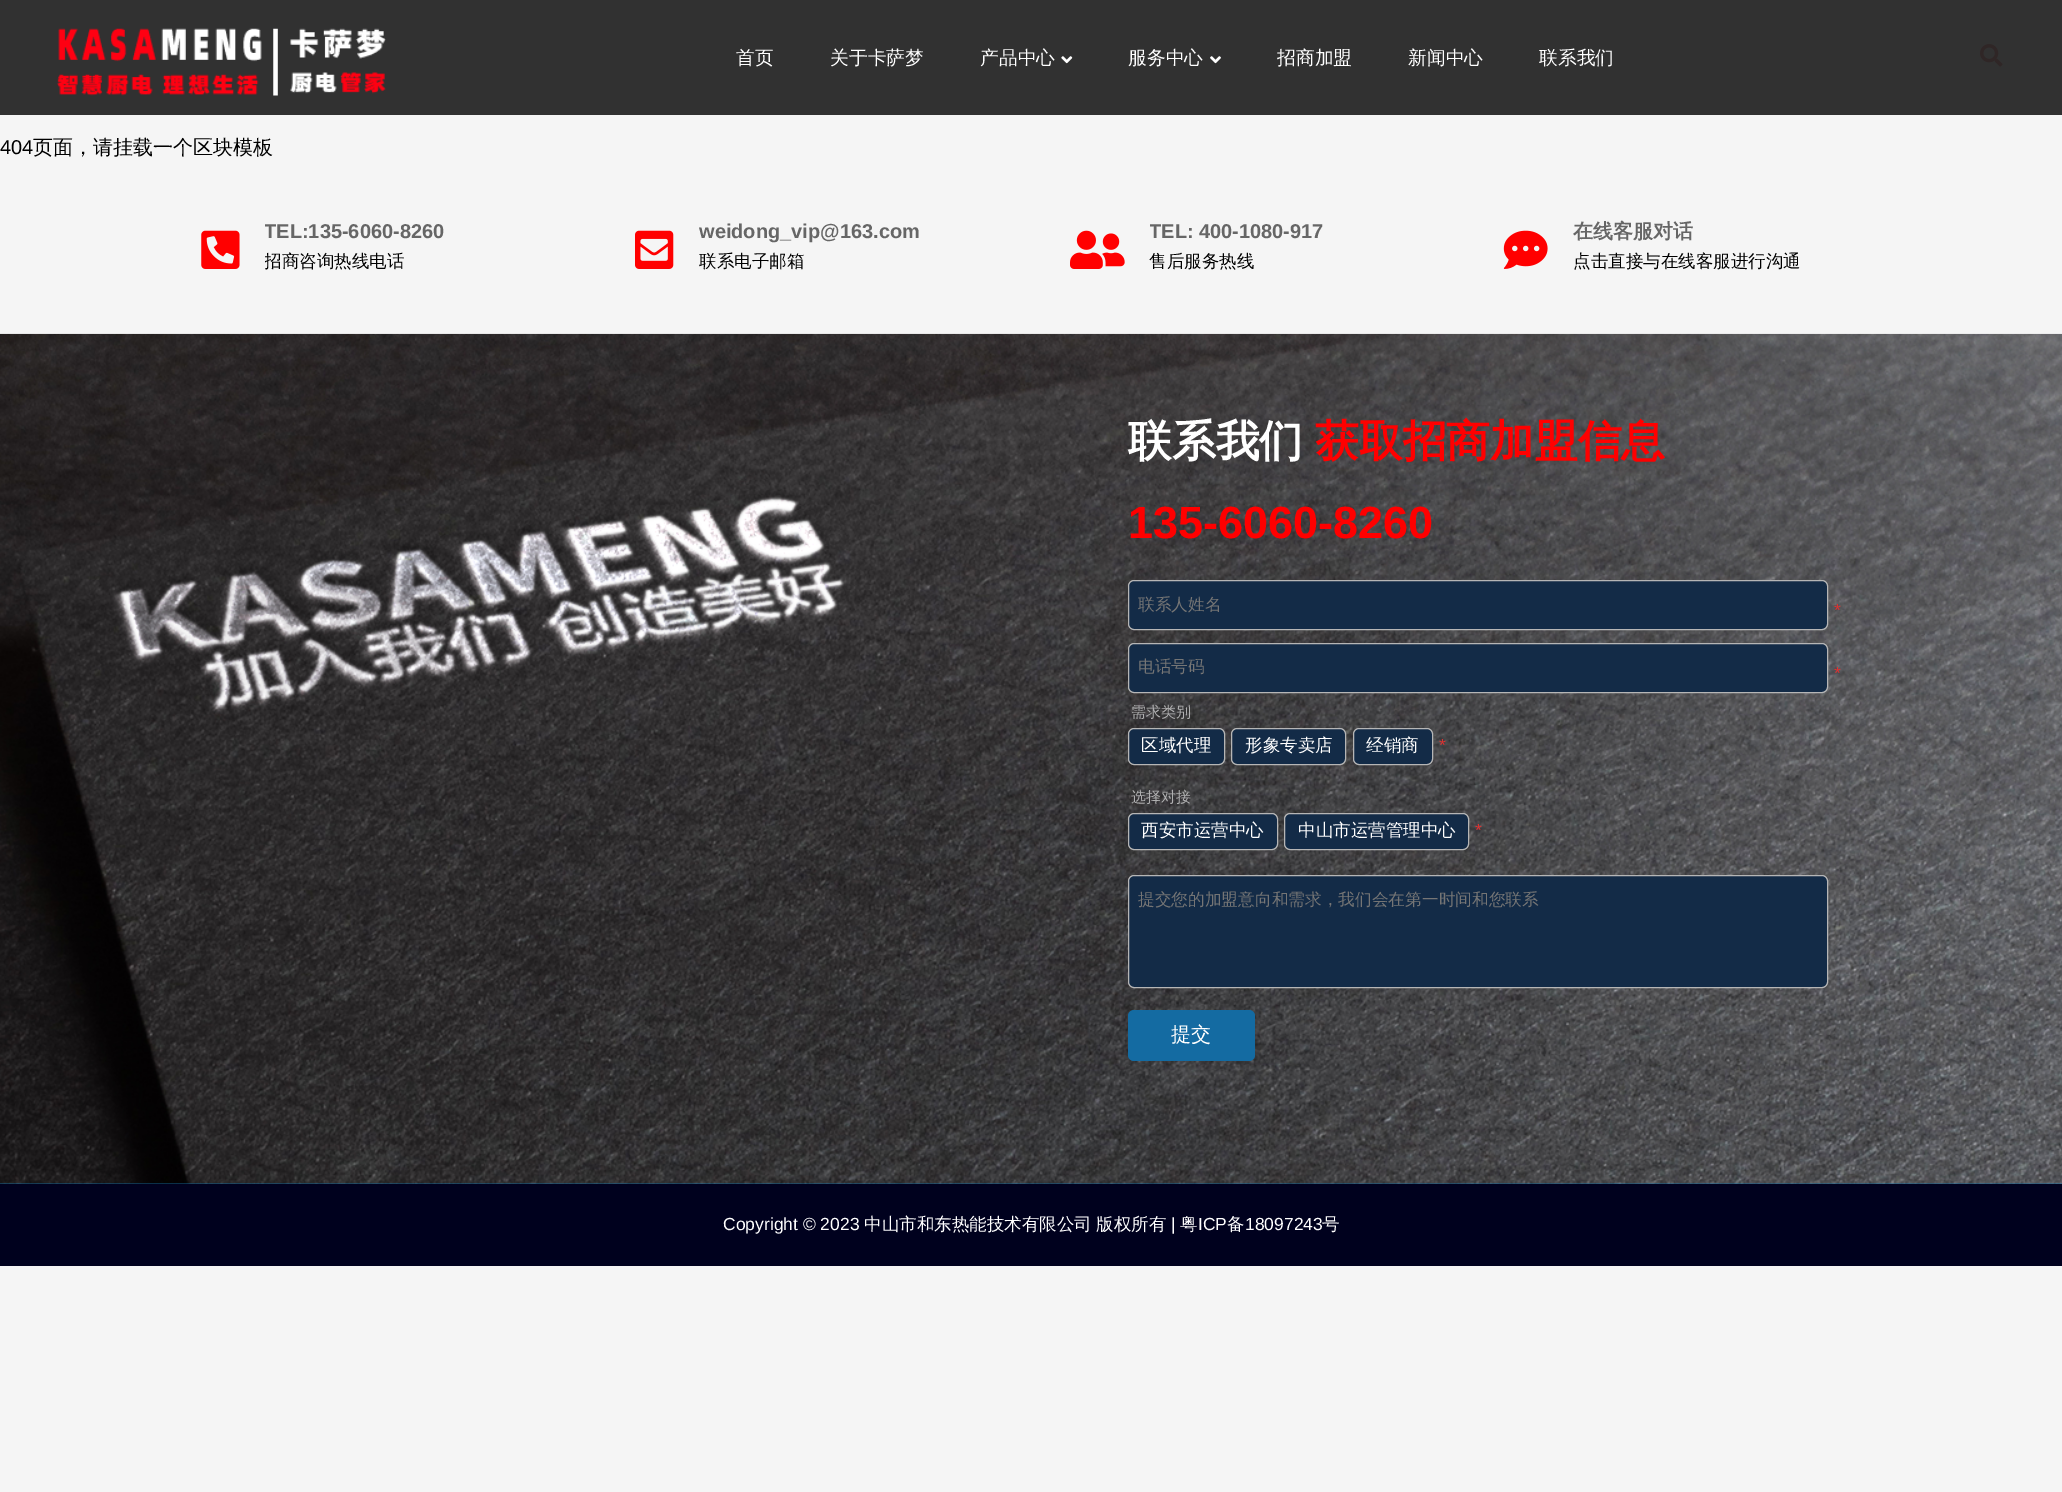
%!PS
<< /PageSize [2062 1492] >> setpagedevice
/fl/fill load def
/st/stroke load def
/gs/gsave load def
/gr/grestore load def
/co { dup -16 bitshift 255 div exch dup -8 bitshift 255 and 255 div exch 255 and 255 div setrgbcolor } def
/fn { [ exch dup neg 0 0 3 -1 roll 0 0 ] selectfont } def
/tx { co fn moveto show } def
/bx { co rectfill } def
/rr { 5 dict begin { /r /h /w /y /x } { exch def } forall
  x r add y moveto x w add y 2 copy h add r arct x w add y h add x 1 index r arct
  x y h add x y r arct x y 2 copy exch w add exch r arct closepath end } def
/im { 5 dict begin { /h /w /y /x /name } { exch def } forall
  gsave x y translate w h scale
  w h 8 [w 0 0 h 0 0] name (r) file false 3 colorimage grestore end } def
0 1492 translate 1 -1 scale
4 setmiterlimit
0 0 2062 1492 16#F5F5F5 bx
0 0 2062 115 16#313131 bx
(media/1.raw) 57 28 329 68 im
(media/2.raw) 1061 56 12 8 im
(media/3.raw) 1210 56 11 8 im
(media/4.raw) 1980 44 23 23 im
(media/5.raw) 201 230 39 39 im
(media/6.raw) 635 230 39 39 im
(media/7.raw) 1070 230 55 39 im
(media/8.raw) 1503 230 45 39 im
0 1183 2062 1 16#146BA2 bx
(media/9.raw) 0 333 2062 851 im
16#132B47 co
1128.5 580.5 699 49 5.5 rr gs fl gr
16#B6B6B6 co
st
16#132B47 co
1128.5 643.5 699 49 5.5 rr gs fl gr
16#B6B6B6 co
st
16#132B47 co
1128.5 728.5 96 36 5.5 rr gs fl gr
16#B6B6B6 co
st
16#132B47 co
1231.5 728.5 114 36 5.5 rr gs fl gr
16#B6B6B6 co
st
16#132B47 co
1353.5 728.5 79 36 5.5 rr gs fl gr
16#B6B6B6 co
st
16#132B47 co
1128.5 813.5 149 36 5.5 rr gs fl gr
16#B6B6B6 co
st
16#132B47 co
1284.5 813.5 184 36 5.5 rr gs fl gr
16#B6B6B6 co
st
16#132B47 co
1128.5 875.5 699 112 5.5 rr gs fl gr
16#B6B6B6 co
st
16#146BA2 co
1128 1010 127 51 6 rr fl
0 1184 2062 82 16#00011E bx
(首页) 736 64 /WenQuanYiZenHei-Medium 18.75 16#FFFFFF tx
(关于卡萨梦) 830 64 /WenQuanYiZenHei-Medium 18.75 16#FFFFFF tx
(产品中心) 980 64 /WenQuanYiZenHei-Medium 18.75 16#FFFFFF tx
(服务中心) 1128 64 /WenQuanYiZenHei-Medium 18.75 16#FFFFFF tx
(招商加盟) 1277 64 /WenQuanYiZenHei-Medium 18.75 16#FFFFFF tx
(新闻中心) 1408 64 /WenQuanYiZenHei-Medium 18.75 16#FFFFFF tx
(联系我们) 1539 64 /WenQuanYiZenHei-Medium 18.75 16#FFFFFF tx
(404) 0 154 /LiberationSans-Regular 20 16#000000 tx
(页面，请挂载一个区块模板) 33 154 /WenQuanYiZenHei-Medium 20 16#000000 tx
gs
265 215 306 55 rectclip
(TEL:135-6060-8260) 264 238 /LiberationSans-Bold 20 16#666666 tx
(招商咨询热线电话) 264 267 /WenQuanYiZenHei-Medium 17.5 16#000000 tx
gr
(weidong_vip@163.com) 699 238 /LiberationSans-Bold 20 16#666666 tx
(联系电子邮箱) 699 267 /WenQuanYiZenHei-Medium 17.5 16#000000 tx
gs
1150 215 290 55 rectclip
(TEL: 400-1080-917) 1149 238 /LiberationSans-Bold 20 16#666666 tx
gr
(售后服务热线) 1149 267 /WenQuanYiZenHei-Medium 17.5 16#000000 tx
(在线客服对话) 1573 238 /WenQuanYiZenHei-Bold 20 16#666666 tx
(点击直接与在线客服进行沟通) 1573 267 /WenQuanYiZenHei-Medium 17.5 16#000000 tx
(联系我们) 1128 456 /WenQuanYiZenHei-Bold 43.75 16#FFFFFF tx
(获取招商加盟信息) 1315 456 /WenQuanYiZenHei-Bold 43.75 16#FF0000 tx
(135-6060-8260) 1128 538 /LiberationSans-Bold 45 16#FF0000 tx
gs
1138 594 680 22 rectclip
(联系人姓名) 1138 610 /WenQuanYiZenHei-Medium 16.7 16#757575 tx
gr
(*) 1834 616 /LiberationSans-Regular 17.5 16#DC3232 tx
(电话号码) 1138 672 /WenQuanYiZenHei-Medium 16.7 16#757575 tx
(*) 1834 679 /LiberationSans-Regular 17.5 16#DC3232 tx
(需求类别) 1131 717 /WenQuanYiZenHei-Medium 15 16#B0B0B1 tx
(区域代理) 1141 751 /WenQuanYiZenHei-Medium 17.5 16#FFFFFF tx
(形象专卖店) 1245 751 /WenQuanYiZenHei-Medium 17.5 16#FFFFFF tx
(经销商) 1366 751 /WenQuanYiZenHei-Medium 17.5 16#FFFFFF tx
(*) 1439 751 /LiberationSans-Regular 17.5 16#DC3232 tx
(选择对接) 1131 802 /WenQuanYiZenHei-Medium 15 16#B0B0B1 tx
(西安市运营中心) 1141 836 /WenQuanYiZenHei-Medium 17.5 16#FFFFFF tx
(中山市运营管理中心) 1298 836 /WenQuanYiZenHei-Medium 17.5 16#FFFFFF tx
(*) 1475 836 /LiberationSans-Regular 17.5 16#DC3232 tx
(提交您的加盟意向和需求，我们会在第一时间和您联系) 1138 905 /WenQuanYiZenHei-Medium 16.7 16#757575 tx
(提交) 1171 1041 /WenQuanYiZenHei-Medium 20 16#FFFFFF tx
(Copyright © 2023) 723 1230 /LiberationSans-Regular 17.5 16#FFFFFF tx
(中山市和东热能技术有限公司) 864 1230 /WenQuanYiZenHei-Medium 17.5 16#FFFFFF tx
(版权所有) 1096 1230 /WenQuanYiZenHei-Medium 17.5 16#FFFFFF tx
(|) 1171 1230 /LiberationSans-Regular 17.5 16#FFFFFF tx
(粤) 1180 1230 /WenQuanYiZenHei-Medium 17.5 16#FFFFFF tx
(ICP) 1198 1230 /LiberationSans-Regular 17.5 16#FFFFFF tx
(备) 1227 1230 /WenQuanYiZenHei-Medium 17.5 16#FFFFFF tx
(18097243) 1245 1230 /LiberationSans-Regular 17.5 16#FFFFFF tx
(号) 1322 1230 /WenQuanYiZenHei-Medium 17.5 16#FFFFFF tx
showpage
